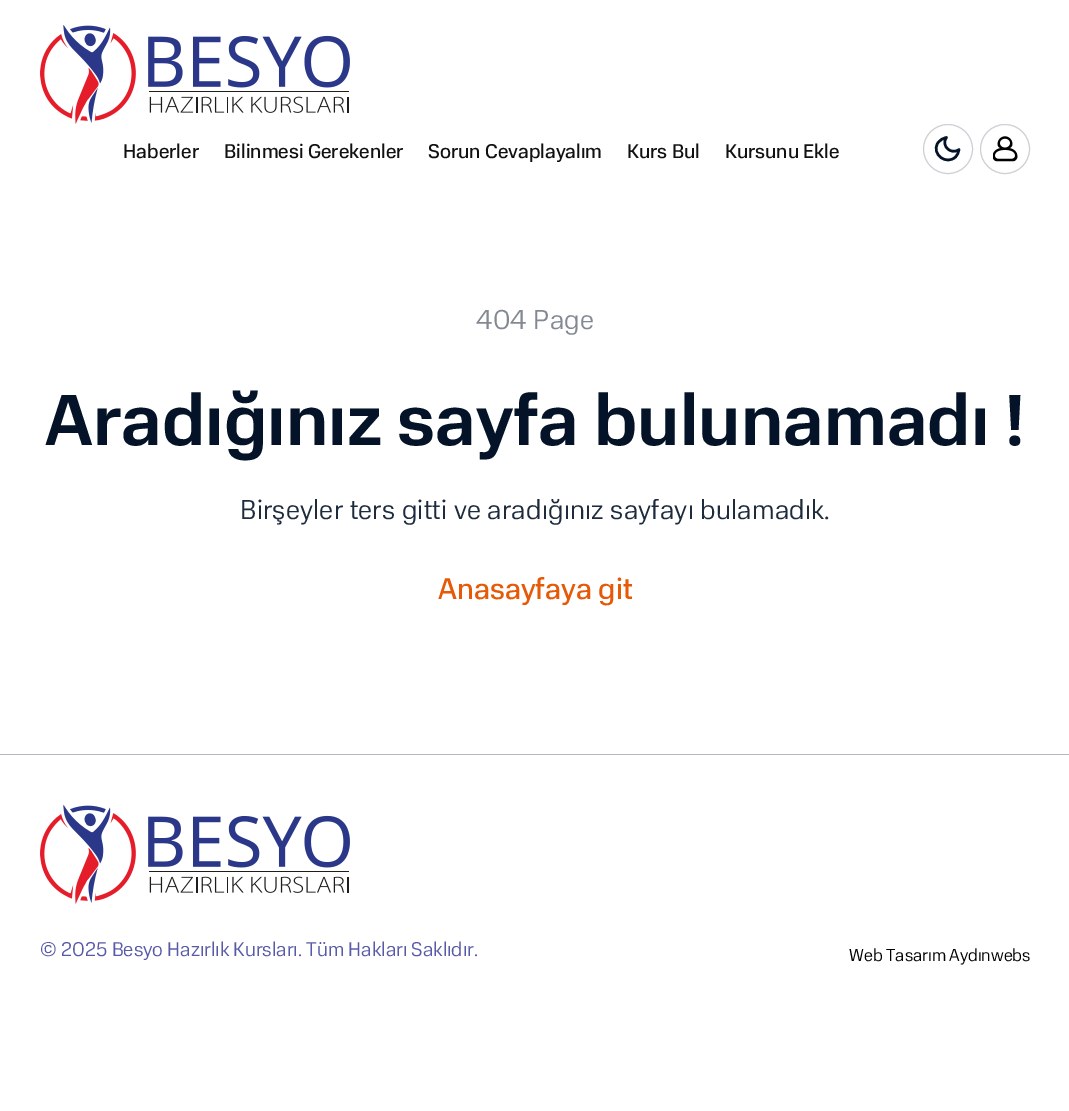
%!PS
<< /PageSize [1069 1111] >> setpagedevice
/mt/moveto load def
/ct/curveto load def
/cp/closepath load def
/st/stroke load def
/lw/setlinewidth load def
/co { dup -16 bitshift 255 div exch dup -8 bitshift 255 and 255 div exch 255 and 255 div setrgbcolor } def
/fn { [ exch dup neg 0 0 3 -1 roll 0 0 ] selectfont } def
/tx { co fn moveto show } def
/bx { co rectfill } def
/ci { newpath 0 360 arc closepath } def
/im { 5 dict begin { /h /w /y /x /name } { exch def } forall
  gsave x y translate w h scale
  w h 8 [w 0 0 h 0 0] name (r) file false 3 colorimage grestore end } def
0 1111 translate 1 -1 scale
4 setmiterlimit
0 0 1069 1111 16#FFFFFF bx
(media/1.raw) 40 25 310 99 im
16#CDD0D4 co
948 149 24.5 ci st
16#041327 co
2.5 lw
1 setlinecap
1 setlinejoin
959 149.5 mt 958.5 152.5 957.5 155 955.5 157 ct 946.5 165.5 931.5 154.5 937.5 143.5 ct 939.5 140 943 138 946.5 137.5 ct 940.5 145.5 951 155.5 959 149.5 ct cp st
16#CDD0D4 co
1 lw
0 setlinecap
0 setlinejoin
1005 149 24.5 ci st
(media/2.raw) 993 136 25 26 im
0 754 1069 1 16#B4B8BE bx
(media/1.raw) 40 805 310 99 im
(Haberler) 123 158 /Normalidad-Regular 20 16#111111 tx
(Bilinmesi Gerekenler) 224 158 /Normalidad-Regular 20 16#111111 tx
(Sorun Cevaplayalım) 428 158 /Normalidad-Regular 20 16#111111 tx
(Kurs Bul) 627 158 /Normalidad-Regular 20 16#111111 tx
(Kursunu Ekle) 725 158 /Normalidad-Regular 20 16#111111 tx
/Normalidad-Light 27.5 fn
16#828993 co
476 329 mt .28 0 (404 Page) ashow
(Aradığınız sayfa bulunamadı !) 45 445 /Normalidad-Medium 72.5 16#041327 tx
/Normalidad-Light 27.5 fn
16#1D2B3D co
240 519 mt .28 0 (Birşeyler ters gitti ve aradığınız sayfayı bulamadık.) ashow
(Anasayfaya git) 438 599 /Normalidad-Regular 30 16#E65907 tx
(© 2025 Besyo Hazırlık Kursları. Tüm Hakları Saklıdır.) 40 956 /Normalidad-Light 20 16#585AA8 tx
(Web Tasarım) 849 961 /Normalidad-Light 17.5 16#000000 tx
(Aydınwebs) 949 961 /Normalidad-Light 17.5 16#000000 tx
showpage
